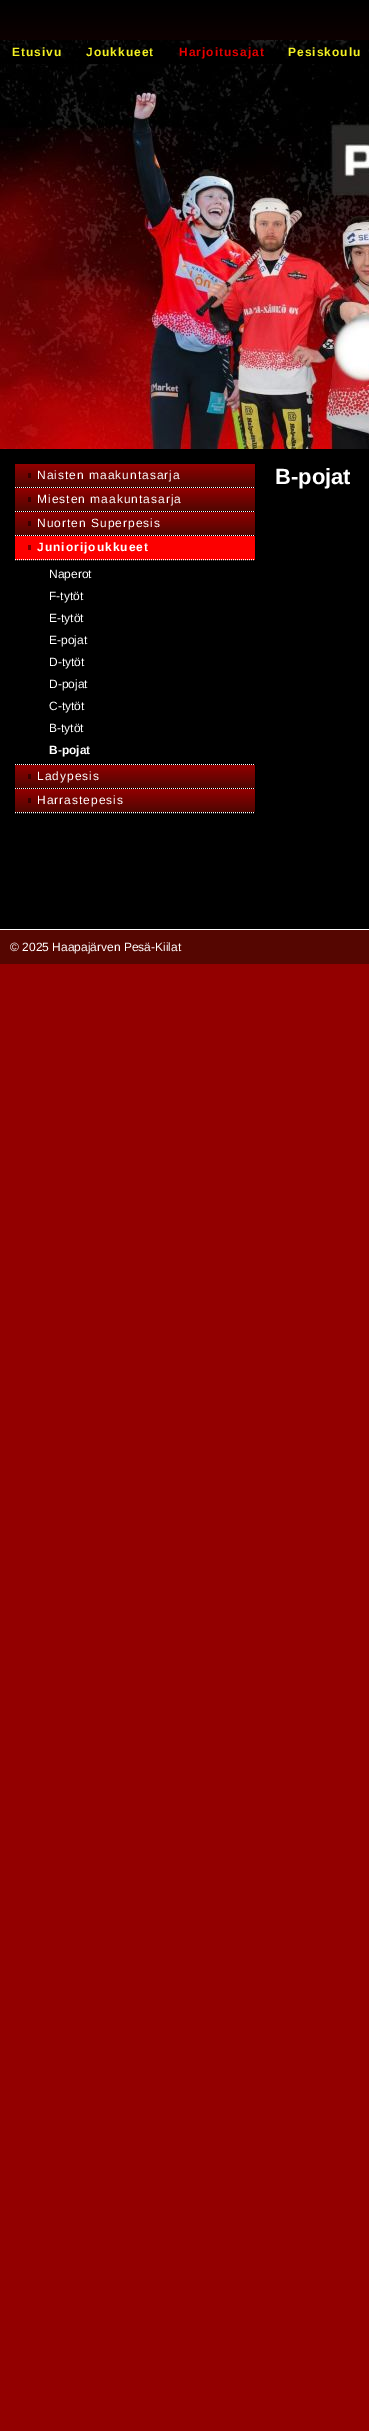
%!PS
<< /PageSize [369 2431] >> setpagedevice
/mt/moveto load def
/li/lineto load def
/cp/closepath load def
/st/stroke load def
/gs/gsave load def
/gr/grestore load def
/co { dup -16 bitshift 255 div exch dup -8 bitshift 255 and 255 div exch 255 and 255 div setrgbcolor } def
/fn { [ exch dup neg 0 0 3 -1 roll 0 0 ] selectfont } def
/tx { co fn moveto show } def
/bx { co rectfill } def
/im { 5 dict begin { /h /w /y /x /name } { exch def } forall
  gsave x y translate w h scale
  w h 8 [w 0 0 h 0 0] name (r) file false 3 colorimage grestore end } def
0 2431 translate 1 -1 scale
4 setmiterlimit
0 0 369 2431 16#FFFFFF bx
gs 0 0 mt 369 0 li 369 2431 li 0 2431 li cp clip newpath
<< /ShadingType 2 /ColorSpace /DeviceRGB /Coords [184 0 185 2431] /Extend [true true] /Function << /FunctionType 3 /Domain [0 1] /Functions [<< /FunctionType 2 /Domain [0 1] /C0 [0 0 0] /C1 [.576 0 0] /N 1 >> << /FunctionType 2 /Domain [0 1] /C0 [.576 0 0] /C1 [.576 0 0] /N 1 >>] /Bounds [.19] /Encode [0 1 0 1] >> >> shfill gr
(media/1.raw) 0 40 369 409 im
0 449 369 480 16#000000 bx
gs 15 464 mt 255 464 li 255 487 li 15 487 li cp clip newpath
<< /ShadingType 2 /ColorSpace /DeviceRGB /Coords [135 464 135 487] /Extend [true true] /Function << /FunctionType 3 /Domain [0 1] /Functions [<< /FunctionType 2 /Domain [0 1] /C0 [.576 0 0] /C1 [.333 .024 .004] /N 1 >> << /FunctionType 2 /Domain [0 1] /C0 [.333 .024 .004] /C1 [.333 .024 .004] /N 1 >>] /Bounds [.91] /Encode [0 1 0 1] >> >> shfill gr
gs 28 473 mt 31 473 li 31 478 li 28 478 li cp clip newpath
<< /ShadingType 2 /ColorSpace /DeviceRGB /Coords [135 464 135 487] /Extend [true true] /Function << /FunctionType 3 /Domain [0 1] /Functions [<< /FunctionType 2 /Domain [0 1] /C0 [.29 0 0] /C1 [.169 .012 .004] /N 1 >> << /FunctionType 2 /Domain [0 1] /C0 [.169 .012 .004] /C1 [.169 .012 .004] /N 1 >>] /Bounds [.91] /Encode [0 1 0 1] >> >> shfill gr
16#FFFFFF co
[1 1] 0 setdash
15 487.5 mt 255 487.5 li st
gs 15 488 mt 255 488 li 255 511 li 15 511 li cp clip newpath
<< /ShadingType 2 /ColorSpace /DeviceRGB /Coords [135 488 135 511] /Extend [true true] /Function << /FunctionType 3 /Domain [0 1] /Functions [<< /FunctionType 2 /Domain [0 1] /C0 [.576 0 0] /C1 [.333 .024 .004] /N 1 >> << /FunctionType 2 /Domain [0 1] /C0 [.333 .024 .004] /C1 [.333 .024 .004] /N 1 >>] /Bounds [.91] /Encode [0 1 0 1] >> >> shfill gr
gs 28 497 mt 31 497 li 31 502 li 28 502 li cp clip newpath
<< /ShadingType 2 /ColorSpace /DeviceRGB /Coords [135 488 135 511] /Extend [true true] /Function << /FunctionType 3 /Domain [0 1] /Functions [<< /FunctionType 2 /Domain [0 1] /C0 [.29 0 0] /C1 [.169 .012 .004] /N 1 >> << /FunctionType 2 /Domain [0 1] /C0 [.169 .012 .004] /C1 [.169 .012 .004] /N 1 >>] /Bounds [.91] /Encode [0 1 0 1] >> >> shfill gr
15 511.5 mt 255 511.5 li st
gs 15 512 mt 255 512 li 255 535 li 15 535 li cp clip newpath
<< /ShadingType 2 /ColorSpace /DeviceRGB /Coords [135 512 135 535] /Extend [true true] /Function << /FunctionType 3 /Domain [0 1] /Functions [<< /FunctionType 2 /Domain [0 1] /C0 [.576 0 0] /C1 [.333 .024 .004] /N 1 >> << /FunctionType 2 /Domain [0 1] /C0 [.333 .024 .004] /C1 [.333 .024 .004] /N 1 >>] /Bounds [.91] /Encode [0 1 0 1] >> >> shfill gr
gs 28 521 mt 31 521 li 31 526 li 28 526 li cp clip newpath
<< /ShadingType 2 /ColorSpace /DeviceRGB /Coords [135 512 135 535] /Extend [true true] /Function << /FunctionType 3 /Domain [0 1] /Functions [<< /FunctionType 2 /Domain [0 1] /C0 [.29 0 0] /C1 [.169 .012 .004] /N 1 >> << /FunctionType 2 /Domain [0 1] /C0 [.169 .012 .004] /C1 [.169 .012 .004] /N 1 >>] /Bounds [.91] /Encode [0 1 0 1] >> >> shfill gr
15 535.5 mt 255 535.5 li st
15 536 240 24 16#FC0000 bx
16#FFFFFF co
15 559.5 mt 255 559.5 li st
28 545 3 5 16#7E0000 bx
16#FFFFFF co
15 764.5 mt 255 764.5 li st
gs 15 765 mt 255 765 li 255 788 li 15 788 li cp clip newpath
<< /ShadingType 2 /ColorSpace /DeviceRGB /Coords [135 765 135 788] /Extend [true true] /Function << /FunctionType 3 /Domain [0 1] /Functions [<< /FunctionType 2 /Domain [0 1] /C0 [.576 0 0] /C1 [.333 .024 .004] /N 1 >> << /FunctionType 2 /Domain [0 1] /C0 [.333 .024 .004] /C1 [.333 .024 .004] /N 1 >>] /Bounds [.91] /Encode [0 1 0 1] >> >> shfill gr
gs 28 774 mt 31 774 li 31 779 li 28 779 li cp clip newpath
<< /ShadingType 2 /ColorSpace /DeviceRGB /Coords [135 765 135 788] /Extend [true true] /Function << /FunctionType 3 /Domain [0 1] /Functions [<< /FunctionType 2 /Domain [0 1] /C0 [.29 0 0] /C1 [.169 .012 .004] /N 1 >> << /FunctionType 2 /Domain [0 1] /C0 [.169 .012 .004] /C1 [.169 .012 .004] /N 1 >>] /Bounds [.91] /Encode [0 1 0 1] >> >> shfill gr
15 788.5 mt 255 788.5 li st
gs 15 789 mt 255 789 li 255 812 li 15 812 li cp clip newpath
<< /ShadingType 2 /ColorSpace /DeviceRGB /Coords [135 789 135 812] /Extend [true true] /Function << /FunctionType 3 /Domain [0 1] /Functions [<< /FunctionType 2 /Domain [0 1] /C0 [.576 0 0] /C1 [.333 .024 .004] /N 1 >> << /FunctionType 2 /Domain [0 1] /C0 [.333 .024 .004] /C1 [.333 .024 .004] /N 1 >>] /Bounds [.91] /Encode [0 1 0 1] >> >> shfill gr
gs 28 798 mt 31 798 li 31 803 li 28 803 li cp clip newpath
<< /ShadingType 2 /ColorSpace /DeviceRGB /Coords [135 789 135 812] /Extend [true true] /Function << /FunctionType 3 /Domain [0 1] /Functions [<< /FunctionType 2 /Domain [0 1] /C0 [.29 0 0] /C1 [.169 .012 .004] /N 1 >> << /FunctionType 2 /Domain [0 1] /C0 [.169 .012 .004] /C1 [.169 .012 .004] /N 1 >>] /Bounds [.91] /Encode [0 1 0 1] >> >> shfill gr
15 812.5 mt 255 812.5 li st
0 930 369 34 16#550601 bx
0 929 369 1 16#FFFFFF bx
/LiberationSans-Bold 12 fn
16#F4F123 co
12 56 mt 1 0 (Etusivu) ashow
86 56 mt 1 0 (Joukkueet) ashow
16#E60000 co
179 56 mt 1 0 (Harjoitusajat) ashow
16#F4F123 co
288 56 mt 1 0 (Pesiskoulu) ashow
/LiberationSans-Regular 12 fn
16#FFFFFF co
37 479 mt 1 0 (Naisten maakuntasarja) ashow
37 503 mt 1 0 (Miesten maakuntasarja) ashow
37 527 mt 1 0 (Nuorten Superpesis) ashow
/LiberationSans-Bold 12 fn
37 551 mt 1 0 (Juniorijoukkueet) ashow
(Naperot) 49 578 /LiberationSans-Regular 12 16#FFFFFF tx
(F-tytöt) 49 600 /LiberationSans-Regular 12 16#FFFFFF tx
(E-tytöt) 49 622 /LiberationSans-Regular 12 16#FFFFFF tx
(E-pojat) 49 644 /LiberationSans-Regular 12 16#FFFFFF tx
(D-tytöt) 49 666 /LiberationSans-Regular 12 16#FFFFFF tx
(D-pojat) 49 688 /LiberationSans-Regular 12 16#FFFFFF tx
(C-tytöt) 49 710 /LiberationSans-Regular 12 16#FFFFFF tx
(B-tytöt) 49 732 /LiberationSans-Regular 12 16#FFFFFF tx
(B-pojat) 49 754 /LiberationSans-Bold 12 16#FFFFFF tx
/LiberationSans-Regular 12 fn
37 780 mt 1 0 (Ladypesis) ashow
37 804 mt 1 0 (Harrastepesis) ashow
(B-pojat) 275 484 /LiberationSans-Bold 22 16#FFFFFF tx
(© 2025 Haapajärven Pesä-Kiilat) 10 951 /LiberationSans-Regular 12 16#FFFFFF tx
showpage
